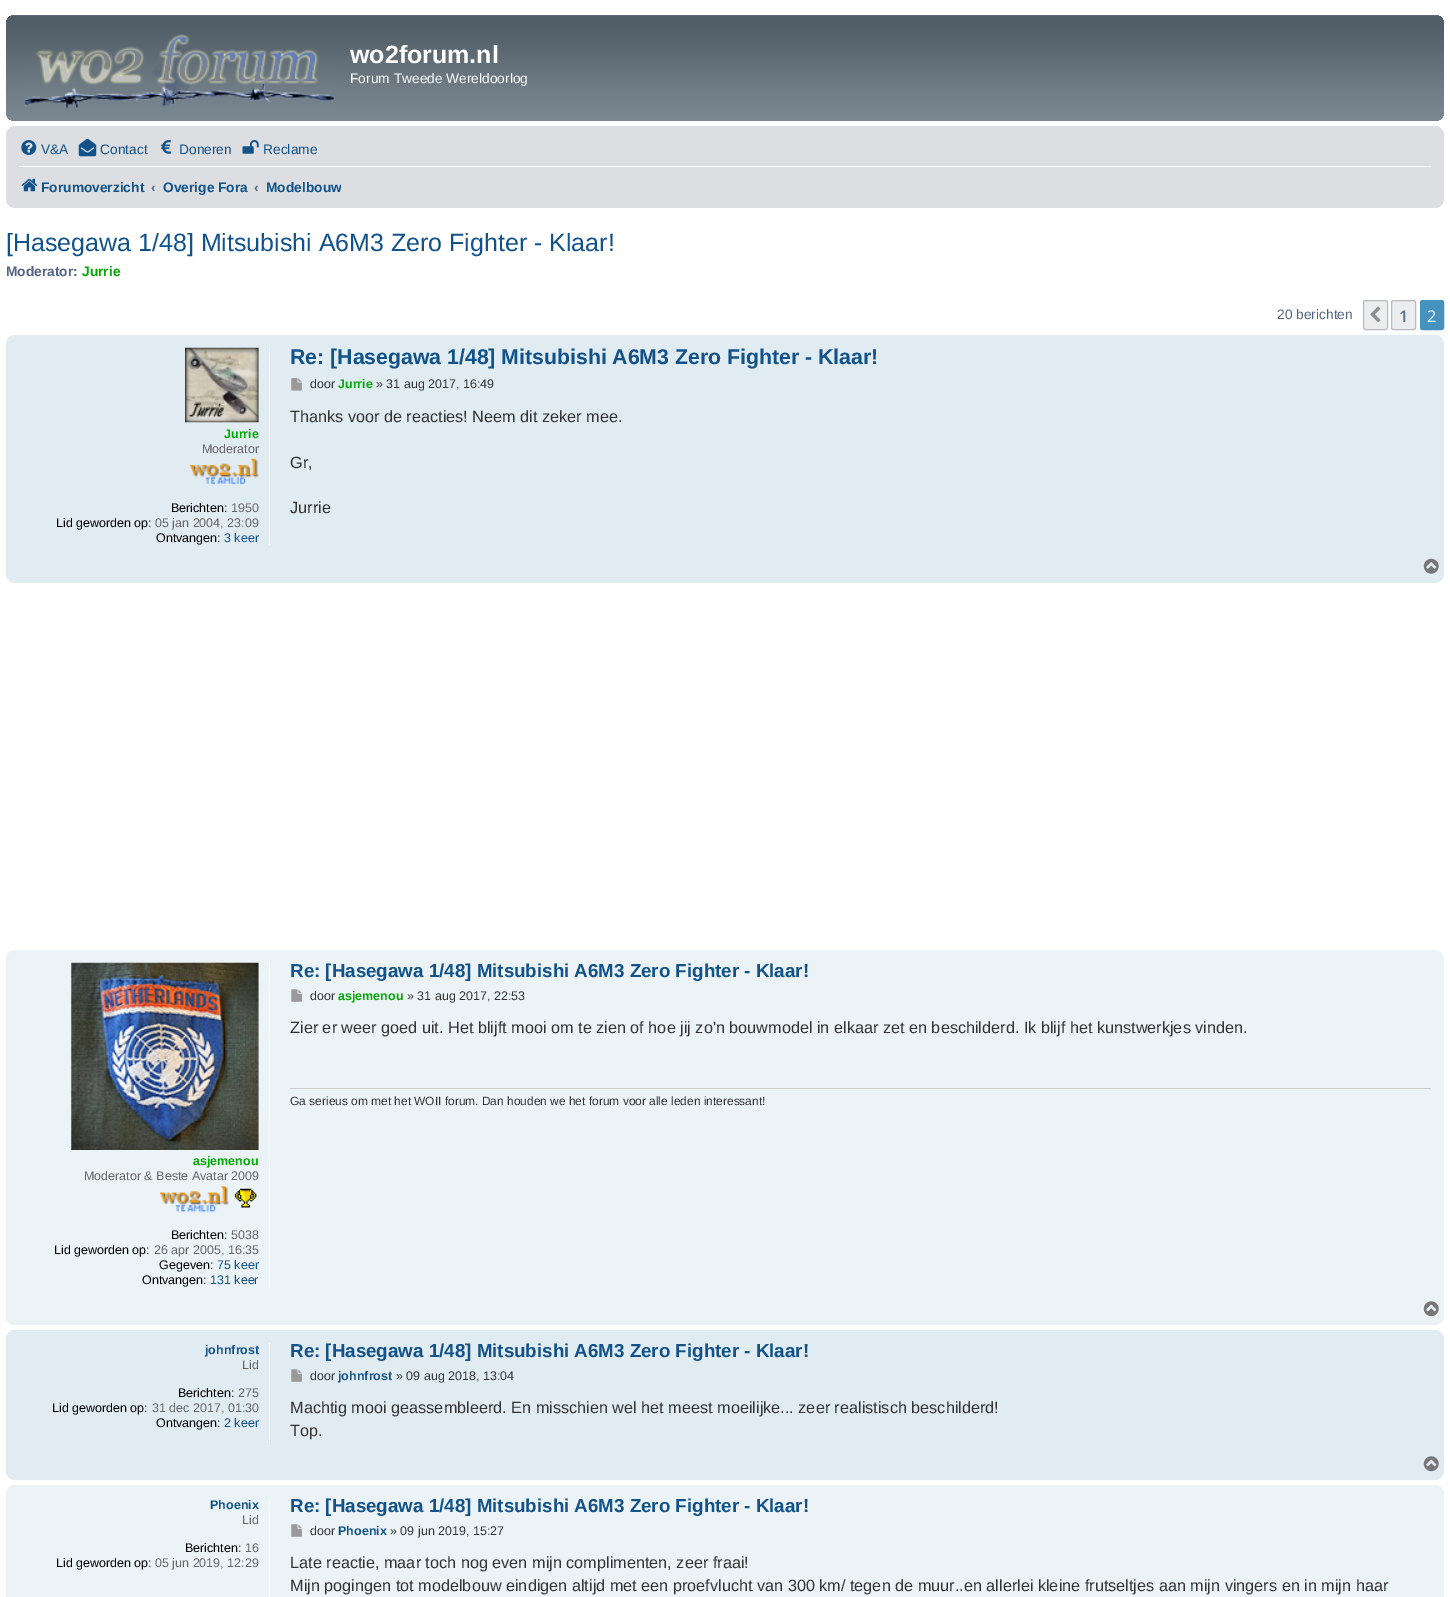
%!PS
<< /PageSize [1450 1597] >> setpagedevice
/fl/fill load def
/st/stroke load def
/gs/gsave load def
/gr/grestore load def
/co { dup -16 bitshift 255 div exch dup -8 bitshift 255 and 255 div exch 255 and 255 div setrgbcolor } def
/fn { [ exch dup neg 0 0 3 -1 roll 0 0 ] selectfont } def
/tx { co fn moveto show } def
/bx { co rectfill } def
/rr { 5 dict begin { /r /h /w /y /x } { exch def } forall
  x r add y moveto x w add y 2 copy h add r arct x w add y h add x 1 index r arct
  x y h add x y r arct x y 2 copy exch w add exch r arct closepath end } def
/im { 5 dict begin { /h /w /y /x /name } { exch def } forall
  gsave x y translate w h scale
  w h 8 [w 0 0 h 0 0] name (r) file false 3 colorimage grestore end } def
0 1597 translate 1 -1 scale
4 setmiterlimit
0 0 1450 1597 16#FFFFFF bx
gs 6 15 1438 106 9 rr clip newpath
<< /ShadingType 2 /ColorSpace /DeviceRGB /Coords [725 15 725 121] /Extend [true true] /Function << /FunctionType 3 /Domain [0 1] /Functions [<< /FunctionType 2 /Domain [0 1] /C0 [.431 .467 .498] /C1 [.314 .361 .396] /N 1 >> << /FunctionType 2 /Domain [0 1] /C0 [.314 .361 .396] /C1 [.337 .384 .42] /N 1 >> << /FunctionType 2 /Domain [0 1] /C0 [.337 .384 .42] /C1 [.451 .498 .533] /N 1 >> << /FunctionType 2 /Domain [0 1] /C0 [.451 .498 .533] /C1 [.486 .533 .569] /N 1 >>] /Bounds [.01 .2 .75] /Encode [0 1 0 1 0 1 0 1] >> >> shfill gr
(media/1.raw) 25 34 309 75 im
16#DCDEE2 co
6 126 1438 82 9 rr fl
(media/2.raw) 21 140 16 15 im
(media/3.raw) 78 138 19 19 im
(media/4.raw) 161 140 11 14 im
(media/5.raw) 242 140 17 14 im
19 166 1412 1 16#FFFFFF bx
(media/6.raw) 21 178 17 14 im
16#ECEDEE co
1363.5 300.5 24 29 2 rr gs fl gr
16#B4BAC0 co
st
(media/7.raw) 1370 306 11 17 im
16#ECEDEE co
1391.5 300.5 24 29 2 rr gs fl gr
16#B4BAC0 co
st
16#4692BF co
1420.5 300.5 23 29 2 rr gs fl gr
st
16#E1EBF2 co
6 335 1438 248 9 rr fl
269 348 1 197 16#FFFFFF bx
(media/8.raw) 185 347 74 76 im
(media/9.raw) 190 458 69 27 im
(media/10.raw) 291 378 11 13 im
(media/11.raw) 1423 558 16 16 im
16#ECF3F7 co
6 950 1438 375 9 rr fl
(media/12.raw) 291 989 11 13 im
290 1088 1141 1 16#CCCCCC bx
269 963 1 325 16#FFFFFF bx
(media/13.raw) 71 962 188 188 im
(media/14.raw) 160 1186 97 27 im
(media/15.raw) 1423 1301 16 16 im
16#E1EBF2 co
6 1330 1438 150 9 rr fl
269 1343 1 100 16#FFFFFF bx
(media/16.raw) 291 1369 11 13 im
(media/17.raw) 1423 1456 16 16 im
16#ECF3F7 co
6 1485 1438 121 9 rr fl
269 1498 1 99 16#FFFFFF bx
(media/12.raw) 291 1524 11 13 im
(wo2forum.nl) 350 63 /LiberationSans-Bold 25 16#FFFFFF tx
(Forum Tweede Wereldoorlog) 350 83 /LiberationSans-Regular 13.75 16#FFFFFF tx
(V&A) 41 154 /LiberationSans-Regular 13.75 16#105289 tx
(Contact) 100 154 /LiberationSans-Regular 13.75 16#105289 tx
(Doneren) 179 154 /LiberationSans-Regular 13.75 16#105289 tx
(Reclame) 263 154 /LiberationSans-Regular 13.75 16#105289 tx
(Forumoverzicht) 41 192 /LiberationSans-Bold 13.75 16#105289 tx
(‹) 151 192 /LiberationSans-Bold 13.75 16#536482 tx
(Overige Fora) 163 192 /LiberationSans-Bold 13.75 16#105289 tx
(‹) 254 192 /LiberationSans-Bold 13.75 16#536482 tx
gs
266 171 75 30 rectclip
(Modelbouw) 266 192 /LiberationSans-Bold 13.75 16#105289 tx
gr
([Hasegawa 1/48] Mitsubishi A6M3 Zero Fighter - Klaar!) 6 251 /LiberationSans-Regular 25 16#105289 tx
(Moderator:) 6 276 /LiberationSans-Bold 13.75 16#536482 tx
(Jurrie) 82 276 /LiberationSans-Bold 13.75 16#00AA00 tx
(20 berichten) 1277 319 /LiberationSans-Regular 13.75 16#536482 tx
(1) 1399 322 /OpenSans-SemiBold 16.25 16#5C758C tx
(2) 1427 322 /OpenSans-Regular 16.25 16#FFFFFF tx
(Jurrie) 224 438 /LiberationSans-Bold 12.5 16#00AA00 tx
(Moderator) 202 453 /LiberationSans-Regular 12.5 16#666666 tx
(Berichten:) 171 512 /LiberationSans-Regular 12.5 16#000000 tx
(1950) 231 512 /LiberationSans-Regular 12.5 16#666666 tx
(Lid geworden op:) 56 527 /LiberationSans-Regular 12.5 16#000000 tx
(05 jan 2004, 23:09) 155 527 /LiberationSans-Regular 12.5 16#666666 tx
(Ontvangen:) 156 542 /LiberationSans-Regular 12.5 16#000000 tx
(3 keer) 224 542 /LiberationSans-Regular 12.5 16#105289 tx
(Re: [Hasegawa 1/48] Mitsubishi A6M3 Zero Fighter - Klaar!) 290 364 /LiberationSans-Bold 21.25 16#105289 tx
(door) 310 388 /LiberationSans-Regular 12.5 16#333333 tx
(Jurrie) 338 388 /LiberationSans-Bold 12.5 16#00AA00 tx
(» 31 aug 2017, 16:49) 376 388 /LiberationSans-Regular 12.5 16#333333 tx
(Thanks voor de reacties! Neem dit zeker mee.) 290 422 /LiberationSans-Regular 16.25 16#333333 tx
(Gr,) 290 468 /LiberationSans-Regular 16.25 16#333333 tx
(Jurrie) 290 513 /LiberationSans-Regular 16.25 16#333333 tx
(Re: [Hasegawa 1/48] Mitsubishi A6M3 Zero Fighter - Klaar!) 290 977 /LiberationSans-Bold 18.75 16#105289 tx
(door) 310 1000 /LiberationSans-Regular 12.5 16#333333 tx
(asjemenou) 338 1000 /LiberationSans-Bold 12.5 16#00AA00 tx
(» 31 aug 2017, 22:53) 407 1000 /LiberationSans-Regular 12.5 16#333333 tx
(Zier er weer goed uit. Het blijft mooi om te zien of hoe jij zo'n bouwmodel in elkaar zet en beschilderd. Ik blijf het kunstwerkjes vinden.) 290 1033 /LiberationSans-Regular 16.25 16#333333 tx
(Ga serieus om met het WOII forum. Dan houden we het forum voor alle leden interessant!) 290 1105 /LiberationSans-Regular 11.95 16#333333 tx
(asjemenou) 193 1165 /LiberationSans-Bold 12.5 16#00AA00 tx
(Moderator & Beste Avatar 2009) 84 1180 /LiberationSans-Regular 12.5 16#666666 tx
(Berichten:) 171 1239 /LiberationSans-Regular 12.5 16#000000 tx
(5038) 231 1239 /LiberationSans-Regular 12.5 16#666666 tx
(Lid geworden op:) 54 1254 /LiberationSans-Regular 12.5 16#000000 tx
(26 apr 2005, 16:35) 154 1254 /LiberationSans-Regular 12.5 16#666666 tx
(Gegeven:) 159 1269 /LiberationSans-Regular 12.5 16#000000 tx
(75 keer) 217 1269 /LiberationSans-Regular 12.5 16#105289 tx
(Ontvangen:) 142 1284 /LiberationSans-Regular 12.5 16#000000 tx
(131 keer) 210 1284 /LiberationSans-Regular 12.5 16#105289 tx
(johnfrost) 205 1354 /LiberationSans-Bold 12.5 16#105289 tx
(Lid) 242 1369 /LiberationSans-Regular 12.5 16#666666 tx
(Berichten:) 178 1397 /LiberationSans-Regular 12.5 16#000000 tx
(275) 238 1397 /LiberationSans-Regular 12.5 16#666666 tx
(Lid geworden op:) 52 1412 /LiberationSans-Regular 12.5 16#000000 tx
(31 dec 2017, 01:30) 152 1412 /LiberationSans-Regular 12.5 16#666666 tx
(Ontvangen:) 156 1427 /LiberationSans-Regular 12.5 16#000000 tx
(2 keer) 224 1427 /LiberationSans-Regular 12.5 16#105289 tx
(Re: [Hasegawa 1/48] Mitsubishi A6M3 Zero Fighter - Klaar!) 290 1357 /LiberationSans-Bold 18.75 16#105289 tx
(door) 310 1380 /LiberationSans-Regular 12.5 16#333333 tx
(johnfrost) 338 1380 /LiberationSans-Bold 12.5 16#105289 tx
(» 09 aug 2018, 13:04) 396 1380 /LiberationSans-Regular 12.5 16#333333 tx
(Machtig mooi geassembleerd. En misschien wel het meest moeilijke... zeer realistisch beschilderd!) 290 1413 /LiberationSans-Regular 16.25 16#333333 tx
(Top.) 290 1436 /LiberationSans-Regular 16.25 16#333333 tx
(Phoenix) 210 1509 /LiberationSans-Bold 12.5 16#105289 tx
(Lid) 242 1524 /LiberationSans-Regular 12.5 16#666666 tx
(Berichten:) 185 1552 /LiberationSans-Regular 12.5 16#000000 tx
(16) 245 1552 /LiberationSans-Regular 12.5 16#666666 tx
(Lid geworden op:) 56 1567 /LiberationSans-Regular 12.5 16#000000 tx
(05 jun 2019, 12:29) 155 1567 /LiberationSans-Regular 12.5 16#666666 tx
(Re: [Hasegawa 1/48] Mitsubishi A6M3 Zero Fighter - Klaar!) 290 1512 /LiberationSans-Bold 18.75 16#105289 tx
(door) 310 1535 /LiberationSans-Regular 12.5 16#333333 tx
(Phoenix) 338 1535 /LiberationSans-Bold 12.5 16#105289 tx
(» 09 jun 2019, 15:27) 390 1535 /LiberationSans-Regular 12.5 16#333333 tx
(Late reactie, maar toch nog even mijn complimenten, zeer fraai!) 290 1568 /LiberationSans-Regular 16.25 16#333333 tx
(Mijn pogingen tot modelbouw eindigen altijd met een proefvlucht van 300 km/ tegen de muur..en allerlei kleine frutseltjes aan mijn vingers en in mijn haar) 290 1591 /LiberationSans-Regular 16.25 16#333333 tx
showpage
